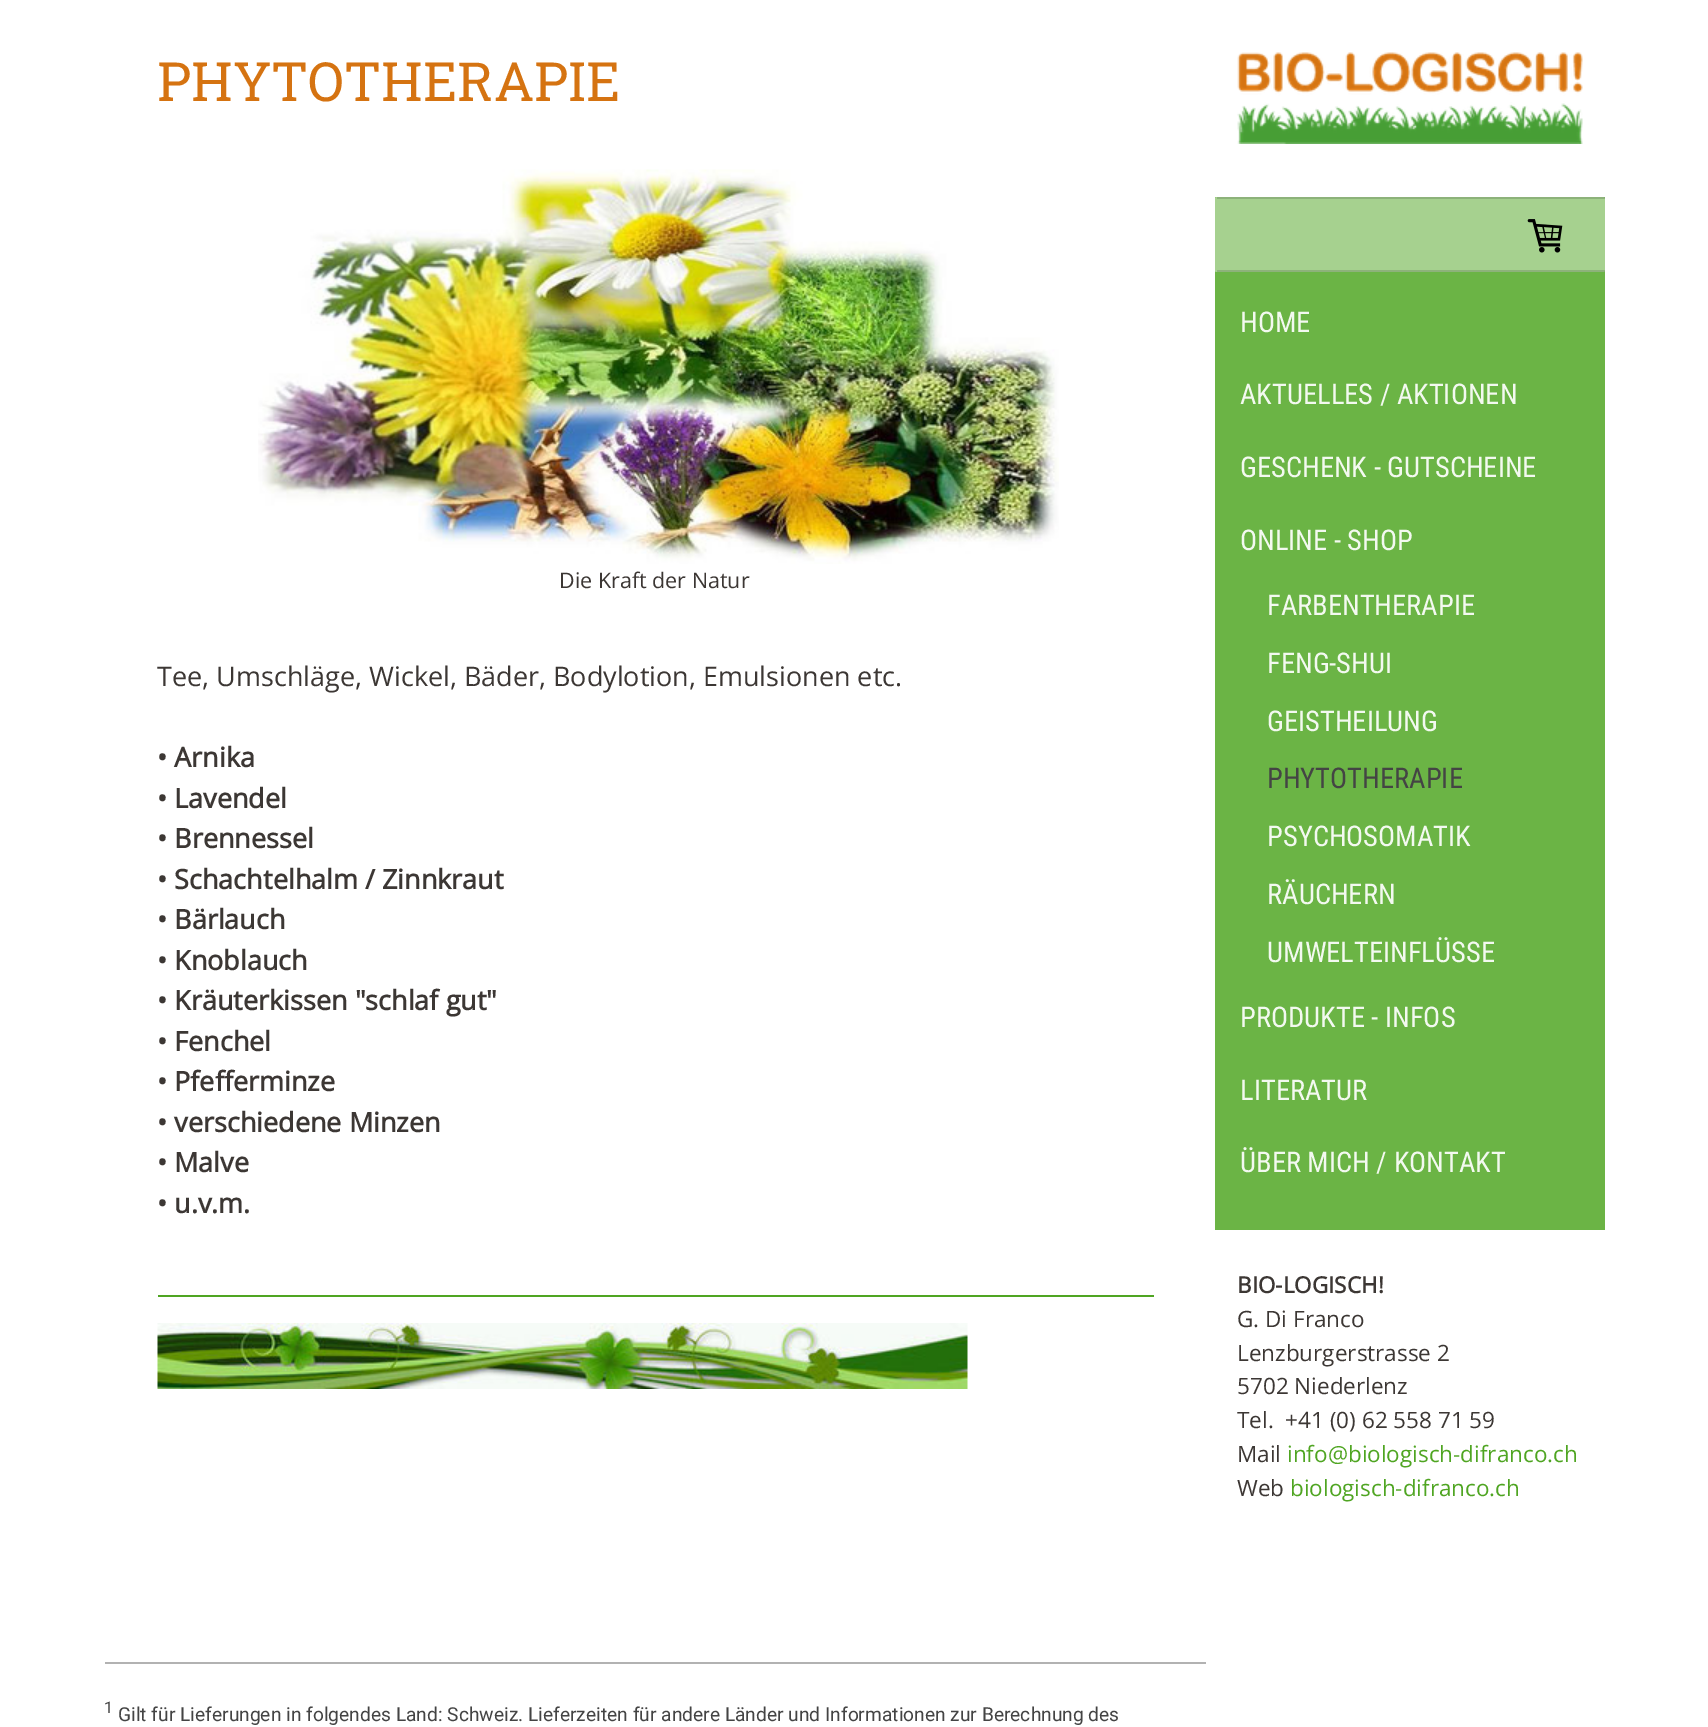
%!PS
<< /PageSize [1708 1727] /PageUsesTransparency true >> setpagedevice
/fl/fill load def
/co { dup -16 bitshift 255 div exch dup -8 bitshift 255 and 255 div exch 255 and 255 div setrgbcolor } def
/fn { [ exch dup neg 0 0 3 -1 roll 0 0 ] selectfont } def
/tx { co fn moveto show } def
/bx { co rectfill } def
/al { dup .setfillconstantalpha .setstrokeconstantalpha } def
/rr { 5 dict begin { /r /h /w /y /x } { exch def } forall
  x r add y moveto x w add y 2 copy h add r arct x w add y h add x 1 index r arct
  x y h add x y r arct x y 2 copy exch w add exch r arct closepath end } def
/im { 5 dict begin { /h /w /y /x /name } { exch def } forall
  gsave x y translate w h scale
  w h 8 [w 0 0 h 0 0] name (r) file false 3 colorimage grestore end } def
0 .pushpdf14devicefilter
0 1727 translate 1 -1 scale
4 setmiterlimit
0 0 1708 1727 16#FFFFFF bx
(media/1.raw) 258 169 801 395 im
158 1295 996 2 16#4FA522 bx
(media/2.raw) 157 1323 811 66 im
(media/3.raw) 1237 52 346 92 im
1215 197 390 75 16#6BB345 bx
16#A6D18F co
1215 197 390 75 1.5 rr fl
0.15 al
1217 197 388 2 16#000000 bx
1217 270 388 2 16#000000 bx
1 al
(media/4.raw) 1527 219 36 34 im
1215 272 390 958 16#6BB445 bx
105 1662 1101 2 16#B2B2B2 bx
(PHYTOTHERAPIE) 157 101 /RobotoSlab-Regular 54 16#D57311 tx
(Die Kraft der Natur) 559 588 /OpenSans-Regular 21.5 16#3C3734 tx
(Tee, Umschläge, Wickel, Bäder, Bodylotion, Emulsionen etc.) 157 686 /OpenSans-Regular 27 16#3C3734 tx
(• Arnika) 157 767 /OpenSans-Bold 27 16#3C3734 tx
(• Lavendel) 157 808 /OpenSans-Bold 27 16#3C3734 tx
(• Brennessel) 157 848 /OpenSans-Bold 27 16#3C3734 tx
(• Schachtelhalm / Zinnkraut) 157 889 /OpenSans-Bold 27 16#3C3734 tx
(• Bärlauch) 157 929 /OpenSans-Bold 27 16#3C3734 tx
(• Knoblauch) 157 970 /OpenSans-Bold 27 16#3C3734 tx
(• Kräuterkissen "schlaf gut") 157 1010 /OpenSans-Bold 27 16#3C3734 tx
(• Fenchel) 157 1051 /OpenSans-Bold 27 16#3C3734 tx
(• Pfefferminze) 157 1091 /OpenSans-Bold 27 16#3C3734 tx
(• verschiedene Minzen) 157 1132 /OpenSans-Bold 27 16#3C3734 tx
(• Malve) 157 1172 /OpenSans-Bold 27 16#3C3734 tx
(• u.v.m.) 157 1213 /OpenSans-Bold 27 16#3C3734 tx
(HOME) 1240 332 /RobotoCondensed-Regular 28.5 16#F3F9F0 tx
(AKTUELLES / AKTIONEN) 1240 404 /RobotoCondensed-Regular 28.5 16#F3F9F0 tx
(GESCHENK - GUTSCHEINE) 1240 477 /RobotoCondensed-Regular 28.5 16#F3F9F0 tx
(ONLINE - SHOP) 1240 550 /RobotoCondensed-Regular 28.5 16#F3F9F0 tx
(FARBENTHERAPIE) 1267 615 /RobotoCondensed-Regular 28.5 16#F3F9F0 tx
(FENG-SHUI) 1267 673 /RobotoCondensed-Regular 28.5 16#F3F9F0 tx
(GEISTHEILUNG) 1267 731 /RobotoCondensed-Regular 28.5 16#F3F9F0 tx
(PHYTOTHERAPIE) 1267 788 /RobotoCondensed-Regular 28.5 16#444444 tx
(PSYCHOSOMATIK) 1267 846 /RobotoCondensed-Regular 28.5 16#F3F9F0 tx
(RÄUCHERN) 1267 904 /RobotoCondensed-Regular 28.5 16#F3F9F0 tx
(UMWELTEINFLÜSSE) 1267 962 /RobotoCondensed-Regular 28.5 16#F3F9F0 tx
(PRODUKTE - INFOS) 1240 1027 /RobotoCondensed-Regular 28.5 16#F3F9F0 tx
(LITERATUR) 1240 1100 /RobotoCondensed-Regular 28.5 16#F3F9F0 tx
(ÜBER MICH / KONTAKT) 1240 1172 /RobotoCondensed-Regular 28.5 16#F3F9F0 tx
(BIO-LOGISCH!) 1237 1293 /OpenSans-Bold 22.5 16#3C3734 tx
(G. Di Franco) 1237 1327 /OpenSans-Regular 22.5 16#3C3734 tx
(Lenzburgerstrasse 2) 1237 1361 /OpenSans-Regular 22.5 16#3C3734 tx
(5702 Niederlenz) 1237 1394 /OpenSans-Regular 22.5 16#3C3734 tx
(Tel.  +41 \(0\) 62 558 71 59) 1237 1428 /OpenSans-Regular 22.5 16#3C3734 tx
(Mail) 1237 1462 /OpenSans-Regular 22.5 16#3C3734 tx
(info@biologisch-difranco.ch) 1287 1462 /OpenSans-Regular 22.5 16#4FA522 tx
(Web) 1237 1496 /OpenSans-Regular 22.5 16#3C3734 tx
(biologisch-difranco.ch) 1290 1496 /OpenSans-Regular 22.5 16#4FA522 tx
(1) 104 1713 /Roboto-Regular 16 16#444444 tx
(Gilt für Lieferungen in folgendes Land: Schweiz. Lieferzeiten für andere Länder und Informationen zur Berechnung des) 118 1721 /Roboto-Regular 19.2 16#444444 tx
.poppdf14devicefilter showpage
